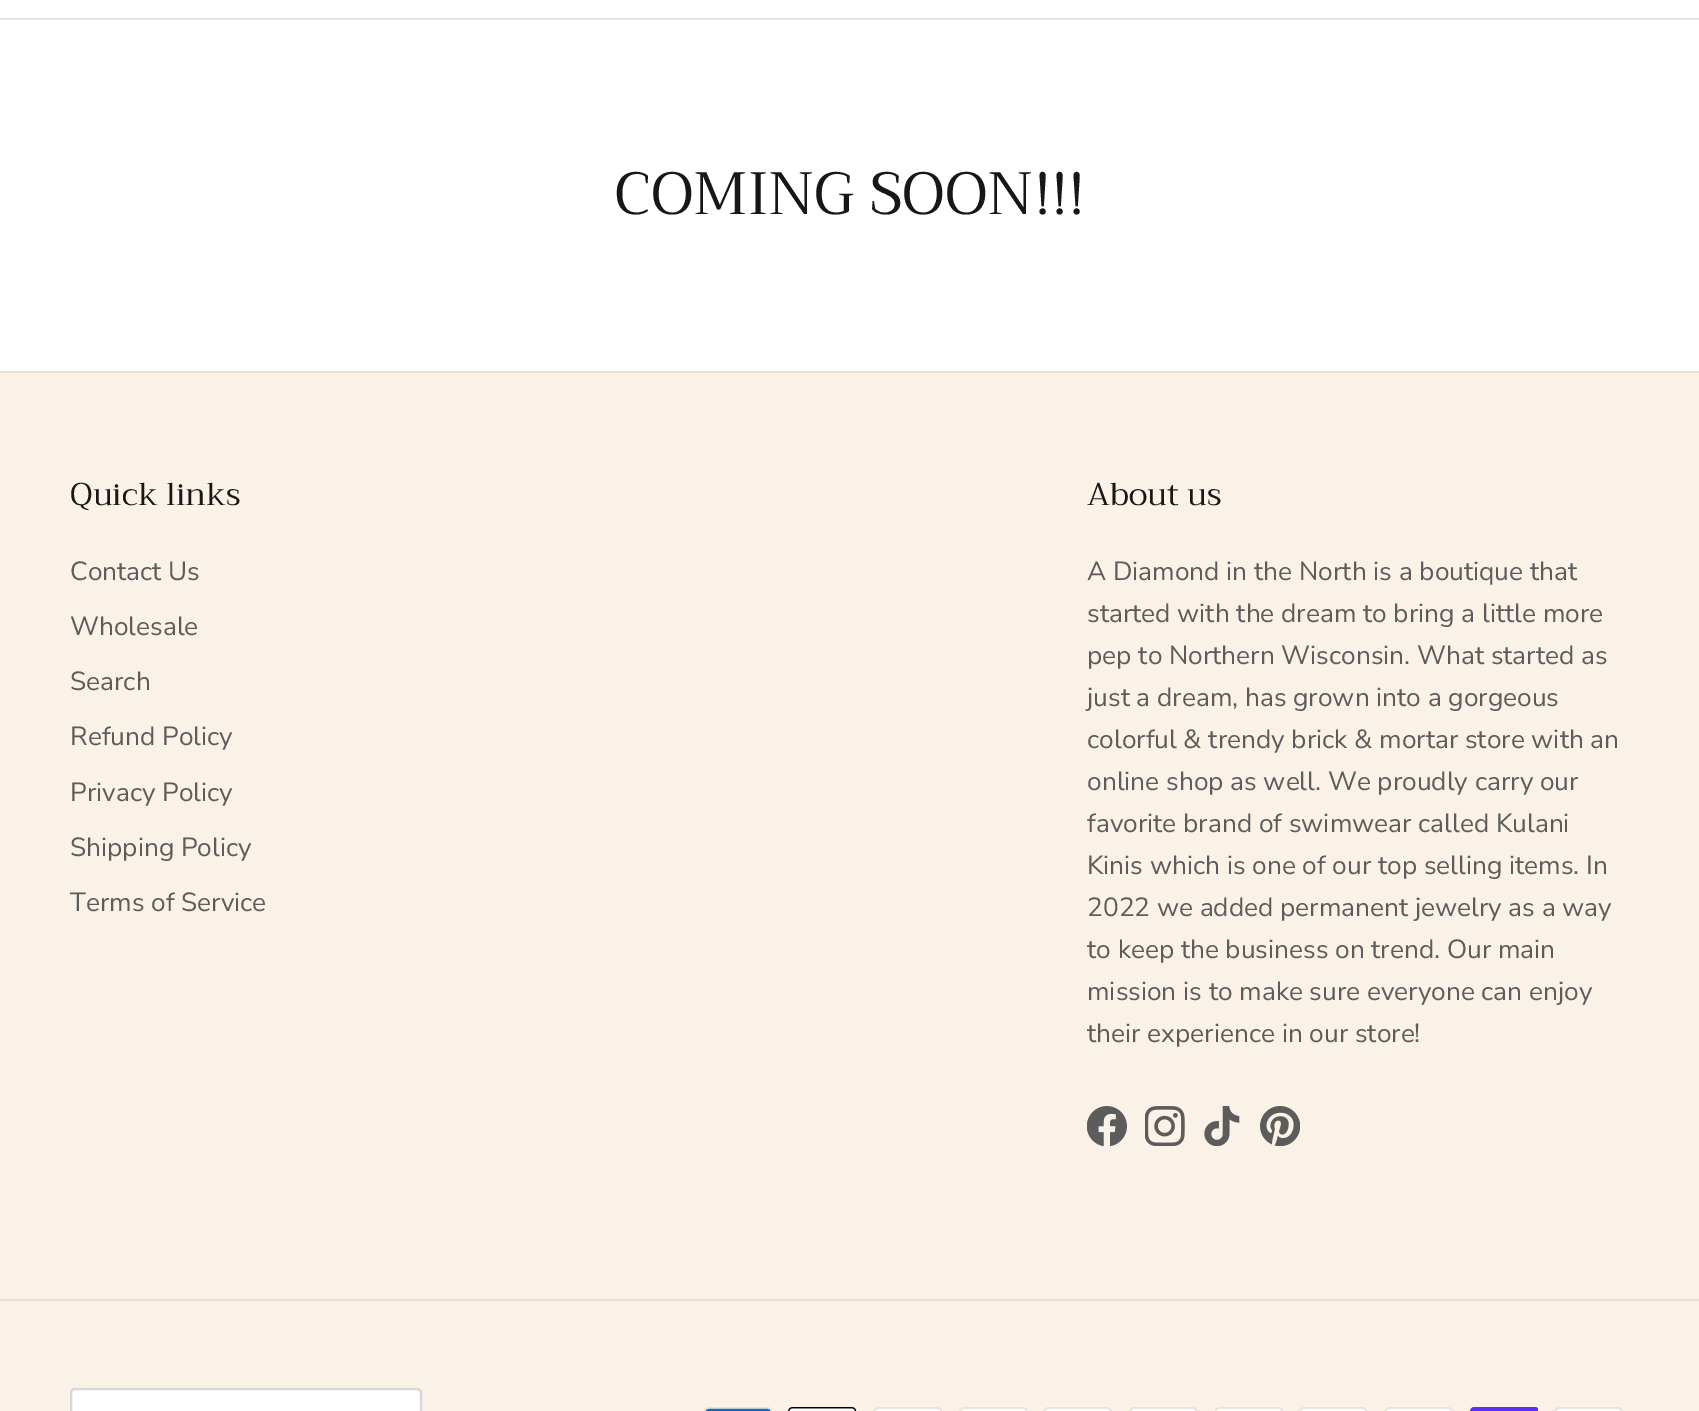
%!PS
<< /PageSize [1699 1411] >> setpagedevice
/fl/fill load def
/st/stroke load def
/gs/gsave load def
/gr/grestore load def
/lw/setlinewidth load def
/co { dup -16 bitshift 255 div exch dup -8 bitshift 255 and 255 div exch 255 and 255 div setrgbcolor } def
/fn { [ exch dup neg 0 0 3 -1 roll 0 0 ] selectfont } def
/tx { co fn moveto show } def
/bx { co rectfill } def
/rr { 5 dict begin { /r /h /w /y /x } { exch def } forall
  x r add y moveto x w add y 2 copy h add r arct x w add y h add x 1 index r arct
  x y h add x y r arct x y 2 copy exch w add exch r arct closepath end } def
/im { 5 dict begin { /h /w /y /x /name } { exch def } forall
  gsave x y translate w h scale
  w h 8 [w 0 0 h 0 0] name (r) file false 3 colorimage grestore end } def
0 1411 translate 1 -1 scale
4 setmiterlimit
0 0 1699 1411 16#FFFFFF bx
0 18 1699 2 16#DFE3E8 bx
0 373 1699 1038 16#FAF2E6 bx
0 371 1699 2 16#EFDFC7 bx
(media/1.raw) 1087 1106 40 40 im
(media/2.raw) 1145 1106 40 40 im
(media/3.raw) 1204 1106 36 40 im
(media/4.raw) 1260 1106 40 40 im
0 1299 1699 2 16#EFDFC7 bx
16#FFFFFF co
71 1389 350 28 4 rr gs fl gr
16#D6D6D6 co
2 lw
st
(media/5.raw) 704 1407 68 4 im
(media/6.raw) 788 1407 69 4 im
(media/7.raw) 873 1407 69 4 im
(media/8.raw) 959 1407 68 4 im
(media/9.raw) 1043 1407 69 4 im
(media/10.raw) 1129 1407 69 4 im
(media/11.raw) 1215 1407 68 4 im
(media/12.raw) 1299 1407 69 4 im
(media/7.raw) 1384 1407 69 4 im
(media/13.raw) 1470 1407 68 4 im
(media/9.raw) 1554 1407 69 4 im
(COMING SOON!!!) 614 214 /Trirong-Regular 59.5 16#171717 tx
(Quick links) 70 505 /Trirong-Regular 31.5 16#171717 tx
(Contact Us) 70 580 /NunitoSans-Regular 26.25 16#5C5C5C tx
(Wholesale) 70 635 /NunitoSans-Regular 26.25 16#5C5C5C tx
(Search) 70 690 /NunitoSans-Regular 26.25 16#5C5C5C tx
(Refund Policy) 70 745 /NunitoSans-Regular 26.25 16#5C5C5C tx
(Privacy Policy) 70 801 /NunitoSans-Regular 26.25 16#5C5C5C tx
(Shipping Policy) 70 856 /NunitoSans-Regular 26.25 16#5C5C5C tx
(Terms of Service) 70 911 /NunitoSans-Regular 26.25 16#5C5C5C tx
(About us) 1087 505 /Trirong-Regular 31.5 16#171717 tx
(A Diamond in the North is a boutique that) 1087 580 /NunitoSans-Regular 26.25 16#5C5C5C tx
(started with the dream to bring a little more) 1087 622 /NunitoSans-Regular 26.25 16#5C5C5C tx
(pep to Northern Wisconsin. What started as) 1087 664 /NunitoSans-Regular 26.25 16#5C5C5C tx
(just a dream, has grown into a gorgeous) 1087 706 /NunitoSans-Regular 26.25 16#5C5C5C tx
(colorful & trendy brick & mortar store with an) 1087 748 /NunitoSans-Regular 26.25 16#5C5C5C tx
(online shop as well. We proudly carry our) 1087 790 /NunitoSans-Regular 26.25 16#5C5C5C tx
(favorite brand of swimwear called Kulani) 1087 832 /NunitoSans-Regular 26.25 16#5C5C5C tx
(Kinis which is one of our top selling items. In) 1087 874 /NunitoSans-Regular 26.25 16#5C5C5C tx
(2022 we added permanent jewelry as a way) 1087 916 /NunitoSans-Regular 26.25 16#5C5C5C tx
(to keep the business on trend. Our main) 1087 958 /NunitoSans-Regular 26.25 16#5C5C5C tx
(mission is to make sure everyone can enjoy) 1087 1000 /NunitoSans-Regular 26.25 16#5C5C5C tx
(their experience in our store!) 1087 1042 /NunitoSans-Regular 26.25 16#5C5C5C tx
showpage
